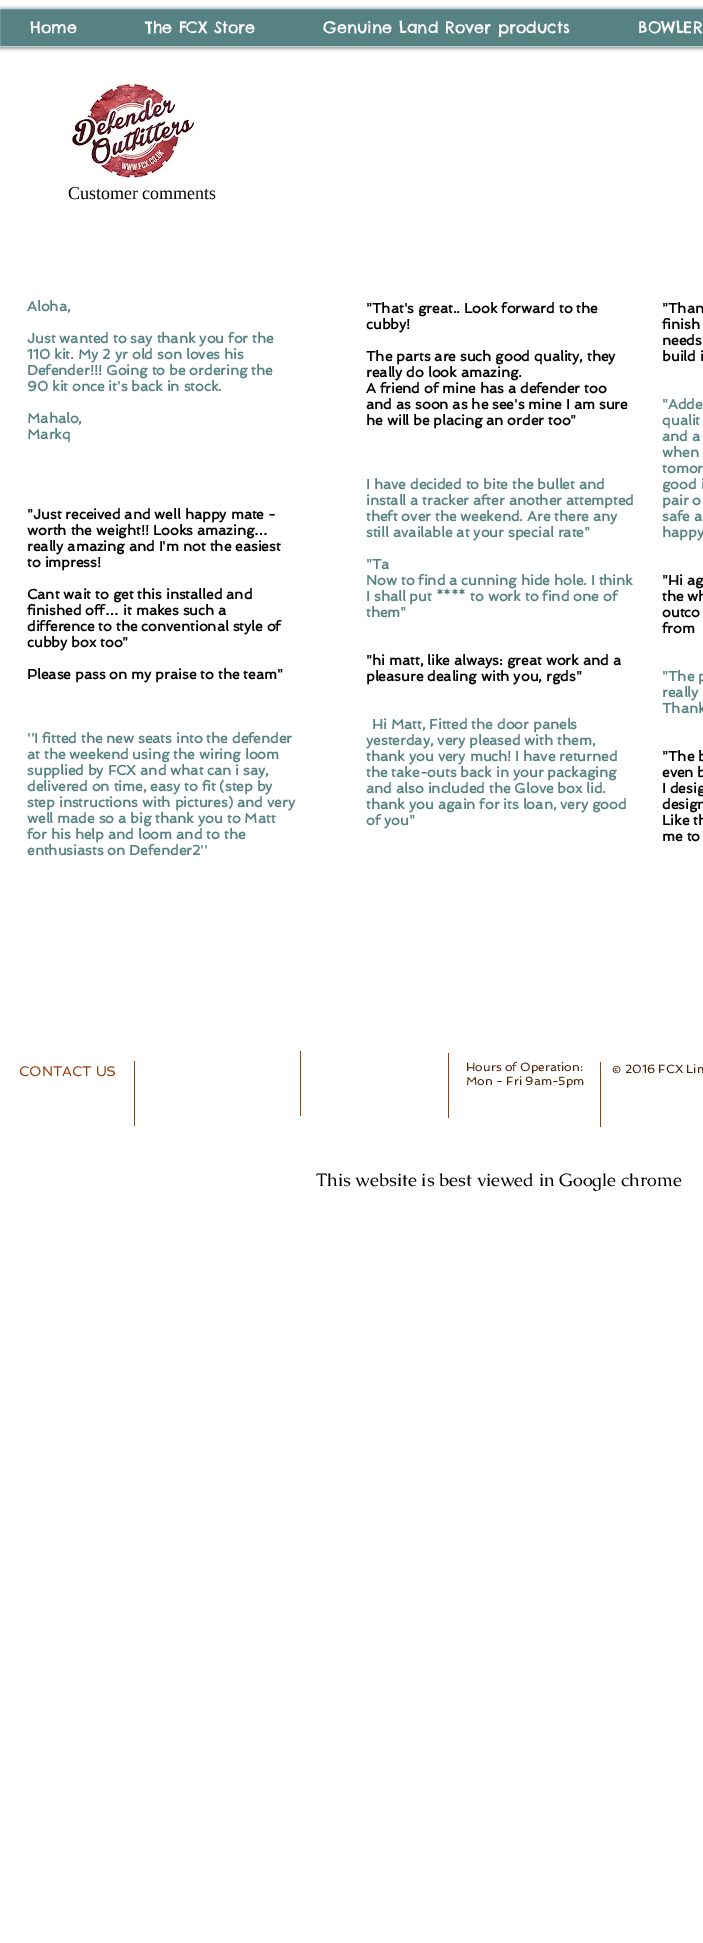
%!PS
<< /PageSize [703 1943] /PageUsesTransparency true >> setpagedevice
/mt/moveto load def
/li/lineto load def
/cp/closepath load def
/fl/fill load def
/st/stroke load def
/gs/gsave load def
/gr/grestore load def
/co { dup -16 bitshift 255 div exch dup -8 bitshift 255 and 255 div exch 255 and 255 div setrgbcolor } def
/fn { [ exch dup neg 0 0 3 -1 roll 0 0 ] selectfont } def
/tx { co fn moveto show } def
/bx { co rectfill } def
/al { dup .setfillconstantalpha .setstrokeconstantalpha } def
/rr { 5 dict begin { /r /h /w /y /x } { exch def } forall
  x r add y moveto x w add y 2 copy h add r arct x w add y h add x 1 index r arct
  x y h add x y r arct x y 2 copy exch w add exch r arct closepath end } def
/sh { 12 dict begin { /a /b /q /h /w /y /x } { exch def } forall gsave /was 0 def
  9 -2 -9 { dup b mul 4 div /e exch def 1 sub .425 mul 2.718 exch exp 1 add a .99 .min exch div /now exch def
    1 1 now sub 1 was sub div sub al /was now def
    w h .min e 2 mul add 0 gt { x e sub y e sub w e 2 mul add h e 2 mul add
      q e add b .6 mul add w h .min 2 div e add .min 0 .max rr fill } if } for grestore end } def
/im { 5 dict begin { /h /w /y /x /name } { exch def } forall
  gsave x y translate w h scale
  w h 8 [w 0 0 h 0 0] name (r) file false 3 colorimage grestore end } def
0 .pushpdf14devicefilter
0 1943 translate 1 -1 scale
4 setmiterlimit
0 0 703 1943 16#FFFFFF bx
16#000000 co
-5 9 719 39 5 2 .6 sh
16#578284 co
-.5 8.5 mt 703.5 8.5 li 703.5 46.5 li -.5 46.5 li cp gs fl gr
16#BDD4D6 co
st
(media/1.raw) 70 83 126 96 im
300 1051 1 65 16#933F0B bx
448 1053 1 65 16#933F0B bx
134 1061 1 65 16#933F0B bx
600 1062 1 65 16#933F0B bx
(Home) 30 33 /ChelseaMarket-Regular 16 16#FFFFFF tx
(The FCX Store) 145 33 /ChelseaMarket-Regular 16 16#FFFFFF tx
(Genuine Land Rover products) 323 33 /ChelseaMarket-Regular 16 16#FFFFFF tx
(BOWLER) 638 33 /ChelseaMarket-Regular 16 16#FFFFFF tx
(Customer comments) 68 199 /LiberationSerif-Regular 18 16#000000 tx
(Aloha,) 27 311 /Spinnaker-Bold 14 16#578284 tx
(Just wanted to say thank you for the) 27 343 /Spinnaker-Bold 14 16#578284 tx
(110 kit. My 2 yr old son loves his) 27 359 /Spinnaker-Bold 14 16#578284 tx
(Defender!!! Going to be ordering the) 27 375 /Spinnaker-Bold 14 16#578284 tx
(90 kit once it's back in stock.) 27 391 /Spinnaker-Bold 14 16#578284 tx
(Mahalo,) 27 423 /Spinnaker-Bold 14 16#578284 tx
(Markq) 27 439 /Spinnaker-Bold 14 16#578284 tx
("Just received and well happy mate -) 27 519 /Spinnaker-Bold 14 16#000000 tx
(worth the weight!! Looks amazing) 27 535 /Spinnaker-Bold 14 16#000000 tx
(…) 254 535 /LiberationSans-Bold 14 16#000000 tx
(really amazing and I'm not the easiest) 27 551 /Spinnaker-Bold 14 16#000000 tx
(to impress!) 27 567 /Spinnaker-Bold 14 16#000000 tx
(Cant wait to get this installed and) 27 599 /Spinnaker-Bold 14 16#000000 tx
(finished off) 27 615 /Spinnaker-Bold 14 16#000000 tx
(…) 105 615 /LiberationSans-Bold 14 16#000000 tx
(it makes such a) 123 615 /Spinnaker-Bold 14 16#000000 tx
(difference to the conventional style of) 27 631 /Spinnaker-Bold 14 16#000000 tx
(cubby box too") 27 647 /Spinnaker-Bold 14 16#000000 tx
(Please pass on my praise to the team") 27 679 /Spinnaker-Bold 14 16#000000 tx
(''I fitted the new seats into the defender) 27 743 /Spinnaker-Bold 14 16#578284 tx
(at the weekend using the wiring loom) 27 759 /Spinnaker-Bold 14 16#578284 tx
(supplied by FCX and what can i say,) 27 775 /Spinnaker-Bold 14 16#578284 tx
(delivered on time, easy to fit \(step by) 27 791 /Spinnaker-Bold 14 16#578284 tx
(step instructions with pictures\) and very) 27 807 /Spinnaker-Bold 14 16#578284 tx
(well made so a big thank you to Matt) 27 823 /Spinnaker-Bold 14 16#578284 tx
(for his help and loom and to the) 27 839 /Spinnaker-Bold 14 16#578284 tx
(enthusiasts on Defender2'') 27 855 /Spinnaker-Bold 14 16#578284 tx
("That's great.. Look forward to the) 366 313 /Spinnaker-Bold 14 16#000000 tx
(cubby!) 366 329 /Spinnaker-Bold 14 16#000000 tx
(The parts are such good quality, they) 366 361 /Spinnaker-Bold 14 16#000000 tx
(really do look amazing.) 366 377 /Spinnaker-Bold 14 16#000000 tx
(A friend of mine has a defender too) 366 393 /Spinnaker-Bold 14 16#000000 tx
(and as soon as he see's mine I am sure) 366 409 /Spinnaker-Bold 14 16#000000 tx
(he will be placing an order too") 366 425 /Spinnaker-Bold 14 16#000000 tx
(I have decided to bite the bullet and) 366 489 /Spinnaker-Bold 14 16#578284 tx
(install a tracker after another attempted) 366 505 /Spinnaker-Bold 14 16#578284 tx
(theft over the weekend. Are there any) 366 521 /Spinnaker-Bold 14 16#578284 tx
(still available at your special rate") 366 537 /Spinnaker-Bold 14 16#578284 tx
("Ta) 366 569 /Spinnaker-Bold 14 16#578284 tx
(Now to find a cunning hide hole. I think) 366 585 /Spinnaker-Bold 14 16#578284 tx
(I shall put **** to work to find one of) 366 601 /Spinnaker-Bold 14 16#578284 tx
(them") 366 617 /Spinnaker-Bold 14 16#578284 tx
("hi matt, like always: great work and a) 366 665 /Spinnaker-Bold 14 16#000000 tx
(pleasure dealing with you, rgds") 366 681 /Spinnaker-Bold 14 16#000000 tx
(Hi Matt, Fitted the door panels) 372 729 /Spinnaker-Bold 14 16#578284 tx
(yesterday, very pleased with them,) 366 745 /Spinnaker-Bold 14 16#578284 tx
(thank you very much! I have returned) 366 761 /Spinnaker-Bold 14 16#578284 tx
(the take-outs back in your packaging) 366 777 /Spinnaker-Bold 14 16#578284 tx
(and also included the Glove box lid.) 366 793 /Spinnaker-Bold 14 16#578284 tx
(thank you again for its loan, very good) 366 809 /Spinnaker-Bold 14 16#578284 tx
(of you") 366 825 /Spinnaker-Bold 14 16#578284 tx
("Than) 662 313 /Spinnaker-Bold 14 16#000000 tx
(finish) 662 329 /Spinnaker-Bold 14 16#000000 tx
(needs) 662 345 /Spinnaker-Bold 14 16#000000 tx
(build i) 662 361 /Spinnaker-Bold 14 16#000000 tx
("Adde) 662 409 /Spinnaker-Bold 14 16#578284 tx
(qualit) 662 425 /Spinnaker-Bold 14 16#578284 tx
(and a) 662 441 /Spinnaker-Bold 14 16#578284 tx
(when) 662 457 /Spinnaker-Bold 14 16#578284 tx
(tomor) 662 473 /Spinnaker-Bold 14 16#578284 tx
(good i) 662 489 /Spinnaker-Bold 14 16#578284 tx
(pair o) 662 505 /Spinnaker-Bold 14 16#578284 tx
(safe a) 662 521 /Spinnaker-Bold 14 16#578284 tx
(happy) 662 537 /Spinnaker-Bold 14 16#578284 tx
("Hi ag) 662 585 /Spinnaker-Bold 14 16#000000 tx
(the wh) 662 601 /Spinnaker-Bold 14 16#000000 tx
(outco) 662 617 /Spinnaker-Bold 14 16#000000 tx
(from) 662 633 /Spinnaker-Bold 14 16#000000 tx
("The p) 662 681 /Spinnaker-Bold 14 16#578284 tx
(really) 662 697 /Spinnaker-Bold 14 16#578284 tx
(Thank) 662 713 /Spinnaker-Bold 14 16#578284 tx
("The b) 662 761 /Spinnaker-Bold 14 16#000000 tx
(even b) 662 777 /Spinnaker-Bold 14 16#000000 tx
(I desig) 662 793 /Spinnaker-Bold 14 16#000000 tx
(design) 662 809 /Spinnaker-Bold 14 16#000000 tx
(Like th) 662 825 /Spinnaker-Bold 14 16#000000 tx
(me to) 662 841 /Spinnaker-Bold 14 16#000000 tx
(CONTACT US) 19 1076 /Spinnaker-Regular 14 16#933F0B tx
(Hours of Operation:) 466 1071 /Spinnaker-Regular 12 16#491F05 tx
(Mon - Fri 9am-5pm) 466 1085 /Spinnaker-Regular 12 16#491F05 tx
(© 2016 FCX Lim) 612 1073 /Spinnaker-Regular 12 16#491F05 tx
(This website is best viewed in Google chrome) 316 1186 /Caudex-Regular 18 16#000000 tx
.poppdf14devicefilter showpage
